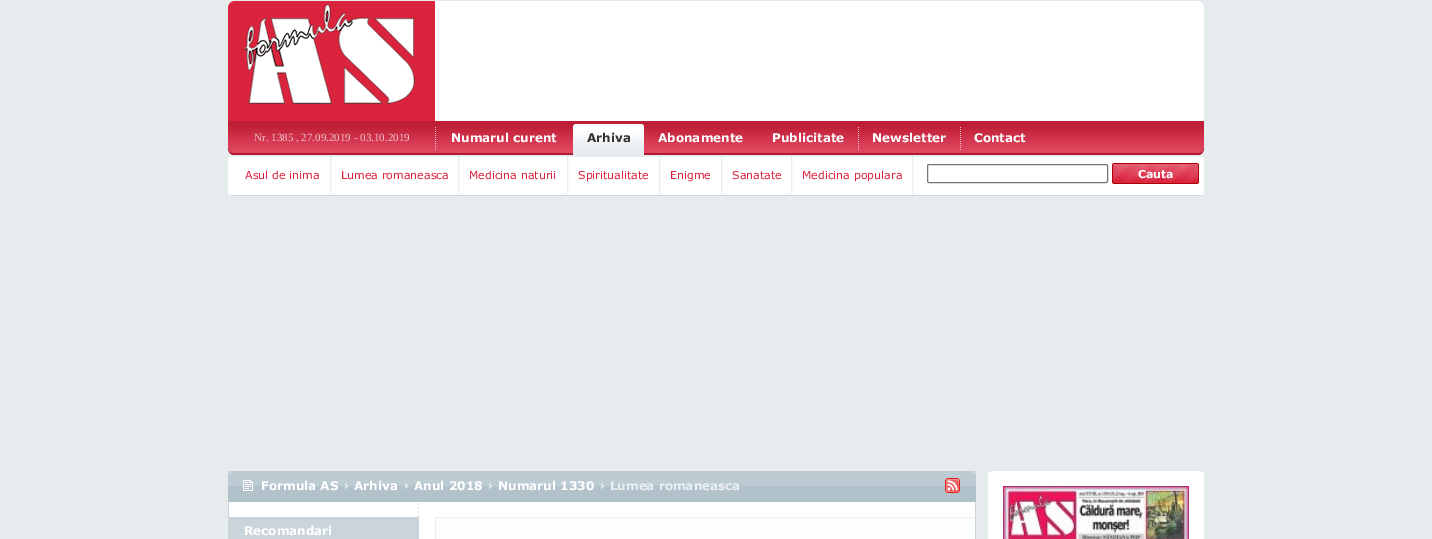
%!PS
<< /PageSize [1432 539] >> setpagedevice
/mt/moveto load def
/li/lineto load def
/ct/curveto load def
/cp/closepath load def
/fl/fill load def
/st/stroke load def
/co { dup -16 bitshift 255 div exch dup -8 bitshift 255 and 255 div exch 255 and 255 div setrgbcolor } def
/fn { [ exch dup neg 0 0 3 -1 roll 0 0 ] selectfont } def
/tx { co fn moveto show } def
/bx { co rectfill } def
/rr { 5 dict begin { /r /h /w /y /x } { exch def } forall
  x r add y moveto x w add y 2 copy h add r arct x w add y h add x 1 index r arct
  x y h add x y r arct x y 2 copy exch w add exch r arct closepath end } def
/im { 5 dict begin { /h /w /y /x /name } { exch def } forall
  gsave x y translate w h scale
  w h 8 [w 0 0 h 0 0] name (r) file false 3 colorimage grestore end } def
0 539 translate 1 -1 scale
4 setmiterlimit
0 0 1432 539 16#E6EBEE bx
435 1 769 120 16#FFFFFF bx
228 104 207 17 16#DA233D bx
(media/1.raw) 228 1 207 103 im
(media/2.raw) 1199 1 5 5 im
(media/3.raw) 228 121 976 34 im
(media/4.raw) 435 127 1 23 im
(media/5.raw) 573 124 71 31 im
(media/6.raw) 573 124 2 2 im
(media/4.raw) 858 127 1 23 im
(media/4.raw) 960 127 1 23 im
(media/7.raw) 228 148 5 7 im
(media/8.raw) 1199 148 5 7 im
16#FFFFFF co
228 157 mt 1204 157 li 1204 191 li 1204 194 1202 196 1199 196 ct 233 196 li 230 196 228 194 228 191 ct cp fl
231 195 971 1 16#D1D6D9 bx
16#D1DDE9 co
[1 1] 0 setdash
330.5 157 mt 330.5 195 li st
458.5 157 mt 458.5 195 li st
567.5 157 mt 567.5 195 li st
659.5 157 mt 659.5 195 li st
721.5 157 mt 721.5 195 li st
791.5 157 mt 791.5 195 li st
912.5 157 mt 912.5 195 li st
16#767676 co
[] 0 setdash
927.5 164.5 180 18 1.5 rr st
(media/9.raw) 1112 163 87 21 im
229 502 746 37 16#FFFFFF bx
(media/10.raw) 418 502 1 15 im
228 486 748 16 16#B1C2CB bx
228 471 748 15 16#BDCBD3 bx
228 471 3 3 16#CCD7DD bx
973 471 3 3 16#CCD7DD bx
(media/11.raw) 243 480 10 11 im
(media/12.raw) 945 478 15 15 im
975 502 1 37 16#CED4D8 bx
228 502 1 37 16#CED4D8 bx
229 517 190 22 16#CAD5DB bx
436 518 539 21 16#FCFDFD bx
435 517 540 1 16#E8EEF4 bx
435 517 1 22 16#E8EEF4 bx
16#FFFFFF co
993 471 mt 1199 471 li 1202 471 1204 473 1204 476 ct 1204 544 li 988 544 li 988 476 li 988 473 990 471 993 471 ct cp fl
(media/13.raw) 1003 486 186 53 im
(Nr. 1385 , 27.09.2019 - 03.10.2019) 254 141 /LiberationSerif-Regular 11 16#F1C2C9 tx
(Numarul curent) 451 142 /Verdana-Bold 12 16#FFFFFF tx
(Arhiva) 587 142 /Verdana-Bold 12 16#333333 tx
(Abonamente) 658 142 /Verdana-Bold 12 16#FFFFFF tx
(Publicitate) 772 142 /Verdana-Bold 12 16#FFFFFF tx
(Newsletter) 872 142 /Verdana-Bold 12 16#FFFFFF tx
(Contact) 974 142 /Verdana-Bold 12 16#FFFFFF tx
(Asul de inima) 245 179 /Verdana-Regular 11 16#DA233D tx
(Lumea romaneasca) 341 179 /Verdana-Regular 11 16#DA233D tx
(Medicina naturii) 469 179 /Verdana-Regular 11 16#DA233D tx
(Spiritualitate) 578 179 /Verdana-Regular 11 16#DA233D tx
(Enigme) 670 179 /Verdana-Regular 11 16#DA233D tx
(Sanatate) 732 179 /Verdana-Regular 11 16#DA233D tx
(Medicina populara) 802 179 /Verdana-Regular 11 16#DA233D tx
(Cauta) 1138 178 /Verdana-Bold 11 16#FFFFFF tx
(Formula AS) 261 490 /Verdana-Bold 12 16#FFFFFF tx
(›) 343 490 /Verdana-Bold 12 16#EBF0F2 tx
(Arhiva) 354 490 /Verdana-Bold 12 16#FFFFFF tx
(›) 403 490 /Verdana-Bold 12 16#EBF0F2 tx
(Anul 2018) 414 490 /Verdana-Bold 12 16#FFFFFF tx
(›) 487 490 /Verdana-Bold 12 16#EBF0F2 tx
(Numarul 1330) 498 490 /Verdana-Bold 12 16#FFFFFF tx
(› Lumea romaneasca) 599 490 /Verdana-Bold 12 16#EBF0F2 tx
(Recomandari) 244 535 /Verdana-Bold 12 16#FFFFFF tx
showpage
